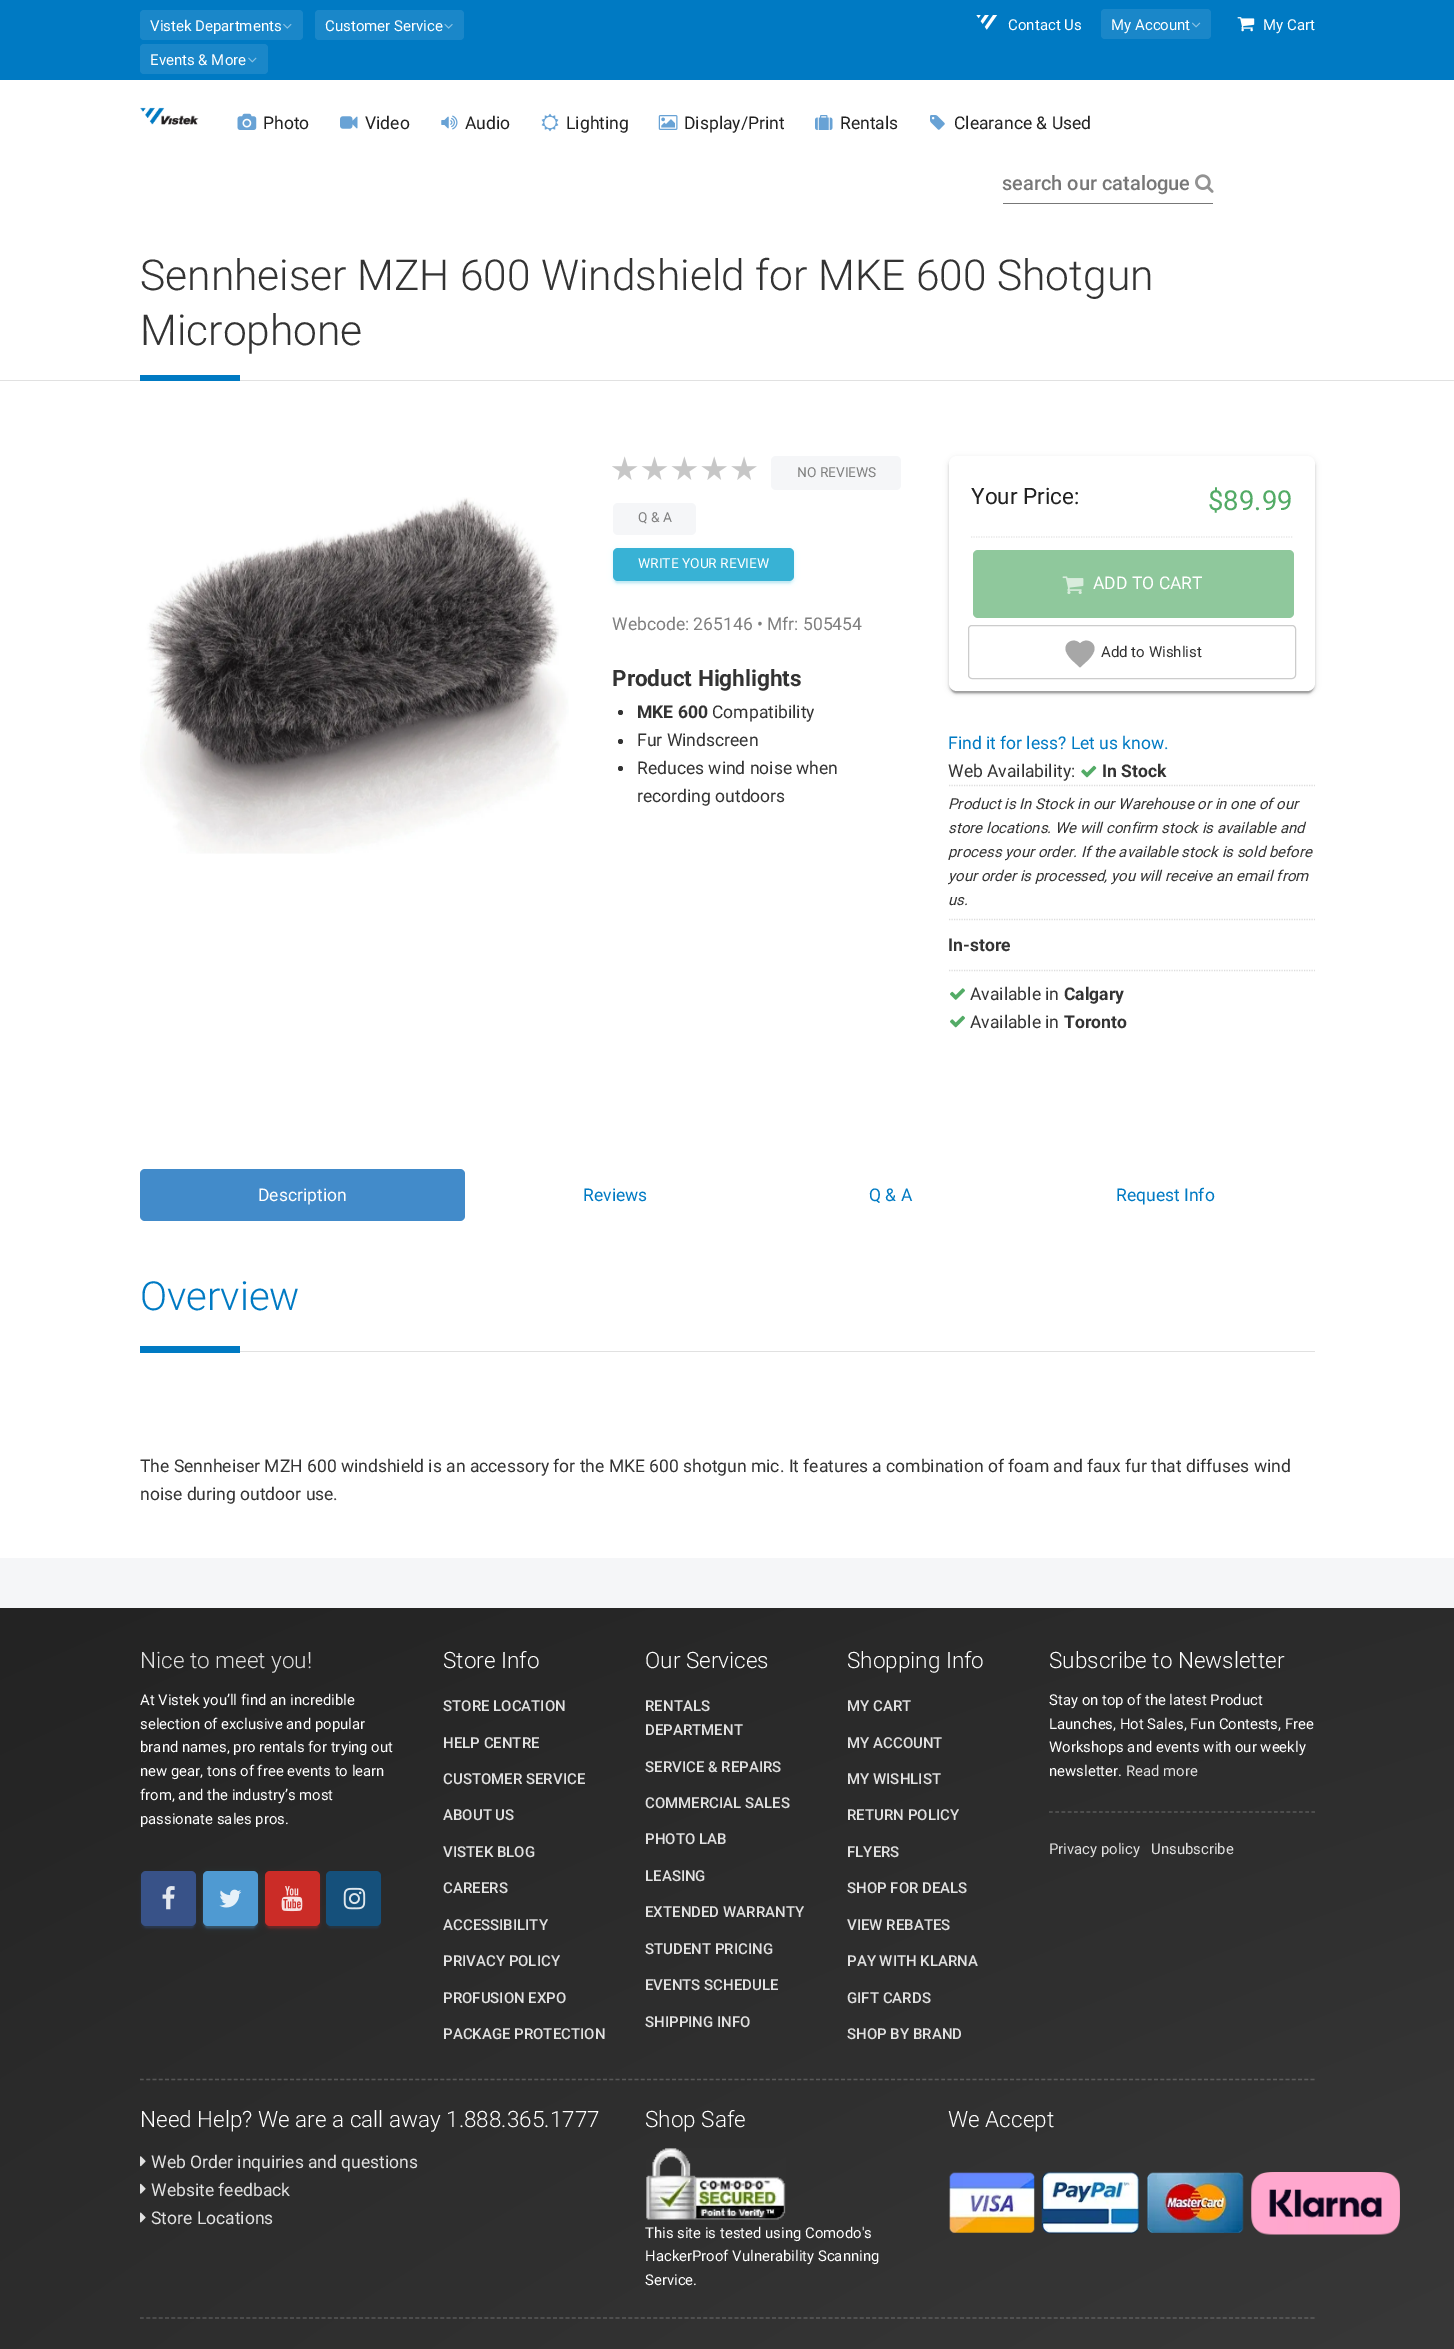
%!PS
<< /PageSize [1454 2349] /PageUsesTransparency true >> setpagedevice
/mt/moveto load def
/li/lineto load def
/ct/curveto load def
/cp/closepath load def
/fl/fill load def
/st/stroke load def
/gs/gsave load def
/gr/grestore load def
/lw/setlinewidth load def
/co { dup -16 bitshift 255 div exch dup -8 bitshift 255 and 255 div exch 255 and 255 div setrgbcolor } def
/fn { [ exch dup neg 0 0 3 -1 roll 0 0 ] selectfont } def
/tx { co fn moveto show } def
/bx { co rectfill } def
/al { dup .setfillconstantalpha .setstrokeconstantalpha } def
/ci { newpath 0 360 arc closepath } def
/rr { 5 dict begin { /r /h /w /y /x } { exch def } forall
  x r add y moveto x w add y 2 copy h add r arct x w add y h add x 1 index r arct
  x y h add x y r arct x y 2 copy exch w add exch r arct closepath end } def
/sh { 12 dict begin { /a /b /q /h /w /y /x } { exch def } forall gsave /was 0 def
  9 -2 -9 { dup b mul 4 div /e exch def 1 sub .425 mul 2.718 exch exp 1 add a .99 .min exch div /now exch def
    1 1 now sub 1 was sub div sub al /was now def
    w h .min e 2 mul add 0 gt { x e sub y e sub w e 2 mul add h e 2 mul add
      q e add b .6 mul add w h .min 2 div e add .min 0 .max rr fill } if } for grestore end } def
/im { 5 dict begin { /h /w /y /x /name } { exch def } forall
  gsave x y translate w h scale
  w h 8 [w 0 0 h 0 0] name (r) file false 3 colorimage grestore end } def
0 .pushpdf14devicefilter
0 2349 translate 1 -1 scale
4 setmiterlimit
0 0 1454 2349 16#F5F6F8 bx
0 0 1454 80 16#007AC3 bx
16#1A87C9 co
140 10 163 30 4 rr fl
(media/1.raw) 283 24 9 5 im
315 10 149 30 4 rr fl
(media/2.raw) 444 24 9 5 im
140 44 128 30 4 rr fl
(media/3.raw) 248 57 9 6 im
(media/4.raw) 976 15 22 15 im
1101 9 110 30 4 rr fl
(media/5.raw) 1192 22 9 6 im
(media/6.raw) 1237 17 18 15 im
0 80 1454 1478 16#FFFFFF bx
(media/7.raw) 140 107 59 18 im
(media/8.raw) 237 113 20 17 im
(media/9.raw) 340 116 18 13 im
(media/10.raw) 441 115 17 15 im
(media/11.raw) 541 113 18 19 im
(media/12.raw) 658 115 20 15 im
(media/13.raw) 815 115 18 15 im
(media/14.raw) 930 115 15 15 im
1003 203 210 1 16#777777 bx
(media/15.raw) 1195 174 19 19 im
0 380 1454 1 16#E1E1E1 bx
140 375 100 6 16#007AC3 bx
(media/16.raw) 140 497 429 357 im
(media/17.raw) 612 456 145 24 im
16#F5F6F8 co
771 456 130 34 5 rr fl
613 503 83 32 5 rr fl
16#5BC0DE co
613 549 181 34 5 3 .12 sh
615 554 176 29 2.5 .5 .2 sh
613 550 181 34 5 1 .14 sh
16#38B2D5 co
613 548 181 33 5 rr fl
16#333333 co
620.5 712.5 2.5 ci fl
620.5 741.5 2.5 ci fl
620.5 768.5 2.5 ci fl
16#000000 co
949 458 366 235 8 3 .12 sh
951 463 362 230 5 .5 .2 sh
949 459 366 235 8 1 .14 sh
16#FFFFFF co
949 456 366 235 8 rr fl
16#E6E6E6 co
1.2 lw
[1.25 1.25] 0 setdash
971 537 mt 1292.5 537 li st
16#8FC89C co
973 550 321 68 5 rr fl
(media/18.raw) 1062 576 22 18 im
16#CCCCCC co
1 lw
[] 0 setdash
968.5 625.5 327 53 3.5 rr st
16#A7A7A7 co
1080 667.5 mt 1075.5 663 1069 658.5 1066.5 652.5 ct 1062 643.5 1073.5 636.5 1080 643.5 ct 1086.5 636.5 1098 643.5 1093.5 652.5 ct 1091 658.5 1084.5 663 1080 667.5 ct cp fl
(media/19.raw) 1081 765 16 13 im
16#DDDDDD co
1.2 lw
[1.25 1.25] 0 setdash
949 785.5 mt 1315 785.5 li st
949 919.5 mt 1315 919.5 li st
949 970.5 mt 1315 970.5 li st
(media/20.raw) 950 988 15 12 im
(media/21.raw) 950 1015 15 13 im
16#428BCA co
140 1169 325 52 5 rr fl
240 1351 1075 1 16#E1E1E1 bx
140 1346 100 7 16#007AC3 bx
gs 0 1608 mt 1454 1608 li 1454 2349 li 0 2349 li cp clip newpath 4001 3348 translate 5659 2462 scale
<< /ShadingType 3 /ColorSpace /DeviceRGB /Coords [0 0 0 0 0 1] /Extend [true true] /Function << /FunctionType 2 /Domain [0 1] /C0 [.345 .345 .345] /C1 [.137 .137 .137] /N 1 >> >> shfill gr
16#385288 co
141 1873 55 55 5 3 .12 sh
144 1878 50 50 2.5 .5 .2 sh
141 1874 55 55 5 1 .14 sh
141 1871 55 55 5 rr fl
(media/22.raw) 162 1886 13 24 im
16#55ACEE co
203 1873 55 55 5 3 .1 sh
16#4F9AD2 co
205 1878 50 50 2.5 .5 .2 sh
203 1874 55 55 5 1 .14 sh
203 1871 55 55 5 rr fl
(media/23.raw) 219 1889 23 19 im
16#E52D27 co
265 1873 55 55 5 3 .1 sh
16#CB2D27 co
268 1878 50 50 2.5 .5 .2 sh
265 1874 55 55 5 1 .14 sh
16#CB2C27 co
265 1871 55 55 5 rr fl
(media/24.raw) 281 1886 22 26 im
16#15507B co
329 1878 50 50 2.5 .5 .2 sh
326 1874 55 55 5 1 .14 sh
326 1871 55 55 5 rr fl
(media/25.raw) 343 1887 23 23 im
16#585858 co
[3.75 2.5] 0 setdash
1049 1812 mt 1315 1812 li st
0.2 al
16#FFFFFF co
[3.75 2.51] 0 setdash
140 2079.5 mt 1315 2079.5 li st
1 al
(media/26.raw) 140 2156 6 11 im
(media/27.raw) 140 2183 6 11 im
(media/28.raw) 140 2212 6 11 im
(media/29.raw) 646 2148 140 72 im
(media/30.raw) 949 2171 295 63 im
(media/31.raw) 1251 2172 149 63 im
0.2 al
140 2318 mt 1315 2318 li st
1 al
(Vistek Departments) 150 31 /Roboto-Regular 15 16#FFFFFF tx
(Customer Service) 325 31 /Roboto-Regular 15 16#FFFFFF tx
(Events & More) 150 65 /Roboto-Regular 15 16#FFFFFF tx
(Contact Us) 1008 30 /Roboto-Regular 15 16#FFFFFF tx
(My Account) 1111 30 /Roboto-Regular 15 16#FFFFFF tx
(My Cart) 1263 30 /Roboto-Regular 15 16#FFFFFF tx
(Photo) 263 129 /Roboto-Regular 17.5 16#212121 tx
(Video) 365 129 /Roboto-Regular 17.5 16#212121 tx
(Audio) 465 129 /Roboto-Regular 17.5 16#212121 tx
(Lighting) 566 129 /Roboto-Regular 17.5 16#212121 tx
(Display/Print) 684 129 /Roboto-Regular 17.5 16#212121 tx
(Rentals) 840 129 /Roboto-Regular 17.5 16#212121 tx
(Clearance & Used) 954 129 /Roboto-Regular 17.5 16#212121 tx
(search our catalogue) 1002 190 /Roboto-Medium 20 16#777777 tx
(Sennheiser MZH 600 Windshield for MKE 600 Shotgun) 140 290 /Roboto-Light 42.5 16#333333 tx
(Microphone) 140 345 /Roboto-Light 42.5 16#333333 tx
(NO REVIEWS) 797 477 /Roboto-Regular 13.75 16#7F7F7F tx
(Q & A) 638 522 /Roboto-Regular 13.75 16#7F7F7F tx
(WRITE YOUR REVIEW) 638 568 /Roboto-Regular 13.75 16#FFFFFF tx
(Webcode: 265146 • Mfr: 505454) 612 630 /Roboto-Regular 17.5 16#7F7F7F tx
(Product Highlights) 612 686 /Roboto-Bold 22.5 16#333333 tx
(MKE 600) 637 718 /Roboto-Bold 17.5 16#333333 tx
(Compatibility) 712 718 /Roboto-Regular 17.5 16#333333 tx
(Fur Windscreen) 637 746 /Roboto-Regular 17.5 16#333333 tx
(Reduces wind noise when) 637 774 /Roboto-Regular 17.5 16#333333 tx
(recording outdoors) 637 802 /Roboto-Regular 17.5 16#333333 tx
(Your Price:) 971 504 /Roboto-Regular 22.5 16#212121 tx
($89.99) 1208 510 /Roboto-Regular 27.5 16#53AB66 tx
(ADD TO CART) 1093 589 /Roboto-Regular 17.5 16#FFFFFF tx
(Add to Wishlist) 1101 657 /Roboto-Regular 15 16#333333 tx
(Find it for less? Let us know.) 948 749 /Roboto-Regular 17.5 16#007AC3 tx
(Web Availability:) 948 777 /Roboto-Regular 17.5 16#333333 tx
(In Stock) 1102 777 /Roboto-Bold 17.5 16#333333 tx
(Product is In Stock in our Warehouse or in one of our) 948 809 /Roboto-Italic 15 16#333333 tx
(store locations. We will confirm stock is available and) 948 833 /Roboto-Italic 15 16#333333 tx
(process your order. If the available stock is sold before) 948 857 /Roboto-Italic 15 16#333333 tx
(your order is processed, you will receive an email from) 948 881 /Roboto-Italic 15 16#333333 tx
(us.) 948 905 /Roboto-Italic 15 16#333333 tx
(In-store) 948 951 /Roboto-Bold 17.5 16#333333 tx
(Available in) 970 1000 /Roboto-Regular 17.5 16#333333 tx
(Calgary) 1064 1000 /Roboto-Bold 17.5 16#333333 tx
(Available in) 970 1028 /Roboto-Regular 17.5 16#333333 tx
(Toronto) 1064 1028 /Roboto-Bold 17.5 16#333333 tx
(Description) 258 1201 /Roboto-Regular 17.5 16#FFFFFF tx
(Reviews) 583 1201 /Roboto-Regular 17.5 16#007AC3 tx
(Q & A) 869 1201 /Roboto-Regular 17.5 16#007AC3 tx
(Request Info) 1116 1201 /Roboto-Regular 17.5 16#007AC3 tx
(Overview) 140 1310 /Roboto-Light 40 16#007AC3 tx
(The Sennheiser MZH 600 windshield is an accessory for the MKE 600 shotgun mic. It features a combination of foam and faux fur that diffuses wind) 140 1472 /Roboto-Regular 17.5 16#333333 tx
(noise during outdoor use.) 140 1500 /Roboto-Regular 17.5 16#333333 tx
(Nice to meet you!) 140 1668 /Roboto-Light 22.5 16#E1E1E1 tx
(At Vistek you’ll find an incredible) 140 1705 /Roboto-Regular 14.9 16#FFFFFF tx
(selection of exclusive and popular) 140 1729 /Roboto-Regular 14.9 16#FFFFFF tx
(brand names, pro rentals for trying out) 140 1752 /Roboto-Regular 14.9 16#FFFFFF tx
(new gear, tons of free events to learn) 140 1776 /Roboto-Regular 14.9 16#FFFFFF tx
(from, and the industry’s most) 140 1800 /Roboto-Regular 14.9 16#FFFFFF tx
(passionate sales pros.) 140 1824 /Roboto-Regular 14.9 16#FFFFFF tx
(Store Info) 443 1668 /Roboto-Light 22.5 16#FFFFFF tx
(STORE LOCATION) 443 1711 /Roboto-Medium 15 16#E1E1E1 tx
(HELP CENTRE) 443 1748 /Roboto-Medium 15 16#E1E1E1 tx
(CUSTOMER SERVICE) 443 1784 /Roboto-Medium 15 16#E1E1E1 tx
(ABOUT US) 443 1820 /Roboto-Medium 15 16#E1E1E1 tx
(VISTEK BLOG) 443 1857 /Roboto-Medium 15 16#E1E1E1 tx
(CAREERS) 443 1893 /Roboto-Medium 15 16#E1E1E1 tx
(ACCESSIBILITY) 443 1930 /Roboto-Medium 15 16#E1E1E1 tx
(PRIVACY POLICY) 443 1966 /Roboto-Medium 15 16#E1E1E1 tx
(PROFUSION EXPO) 443 2003 /Roboto-Medium 15 16#E1E1E1 tx
(PACKAGE PROTECTION) 443 2039 /Roboto-Medium 15 16#E1E1E1 tx
(Our Services) 645 1668 /Roboto-Light 22.5 16#FFFFFF tx
(RENTALS) 645 1711 /Roboto-Medium 15 16#E1E1E1 tx
(DEPARTMENT) 645 1735 /Roboto-Medium 15 16#E1E1E1 tx
(SERVICE & REPAIRS) 645 1772 /Roboto-Medium 15 16#E1E1E1 tx
(COMMERCIAL SALES) 645 1808 /Roboto-Medium 15 16#E1E1E1 tx
(PHOTO LAB) 645 1844 /Roboto-Medium 15 16#E1E1E1 tx
(LEASING) 645 1881 /Roboto-Medium 15 16#E1E1E1 tx
(EXTENDED WARRANTY) 645 1917 /Roboto-Medium 15 16#E1E1E1 tx
(STUDENT PRICING) 645 1954 /Roboto-Medium 15 16#E1E1E1 tx
(EVENTS SCHEDULE) 645 1990 /Roboto-Medium 15 16#E1E1E1 tx
(SHIPPING INFO) 645 2027 /Roboto-Medium 15 16#E1E1E1 tx
(Shopping Info) 847 1668 /Roboto-Light 22.5 16#FFFFFF tx
(MY CART) 847 1711 /Roboto-Medium 15 16#E1E1E1 tx
(MY ACCOUNT) 847 1748 /Roboto-Medium 15 16#E1E1E1 tx
(MY WISHLIST) 847 1784 /Roboto-Medium 15 16#E1E1E1 tx
(RETURN POLICY) 847 1820 /Roboto-Medium 15 16#E1E1E1 tx
(FLYERS) 847 1857 /Roboto-Medium 15 16#E1E1E1 tx
(SHOP FOR DEALS) 847 1893 /Roboto-Medium 15 16#E1E1E1 tx
(VIEW REBATES) 847 1930 /Roboto-Medium 15 16#E1E1E1 tx
(PAY WITH KLARNA) 847 1966 /Roboto-Medium 15 16#E1E1E1 tx
(GIFT CARDS) 847 2003 /Roboto-Medium 15 16#E1E1E1 tx
(SHOP BY BRAND) 847 2039 /Roboto-Medium 15 16#E1E1E1 tx
(Subscribe to Newsletter) 1049 1668 /Roboto-Light 22.5 16#FFFFFF tx
(Stay on top of the latest Product) 1049 1705 /Roboto-Regular 14.9 16#FFFFFF tx
(Launches, Hot Sales, Fun Contests, Free) 1049 1729 /Roboto-Regular 14.9 16#FFFFFF tx
(Workshops and events with our weekly) 1049 1752 /Roboto-Regular 14.9 16#FFFFFF tx
(newsletter.) 1049 1776 /Roboto-Regular 14.9 16#FFFFFF tx
(Read more) 1126 1776 /Roboto-Regular 14.9 16#E1E1E1 tx
(Privacy policy) 1049 1854 /Roboto-Regular 14.9 16#E1E1E1 tx
(Unsubscribe) 1151 1854 /Roboto-Regular 14.9 16#E1E1E1 tx
(Need Help? We are a call away 1.888.365.1777) 140 2127 /Roboto-Light 22.5 16#FFFFFF tx
(Web Order inquiries and questions) 151 2168 /Roboto-Regular 17.5 16#E1E1E1 tx
(Website feedback) 151 2196 /Roboto-Regular 17.5 16#E1E1E1 tx
(Store Locations) 151 2224 /Roboto-Regular 17.5 16#E1E1E1 tx
(Shop Safe) 645 2127 /Roboto-Light 22.5 16#FFFFFF tx
(This site is tested using Comodo's) 645 2238 /Roboto-Regular 14.9 16#FFFFFF tx
(HackerProof Vulnerability Scanning) 645 2261 /Roboto-Regular 14.9 16#FFFFFF tx
(Service.) 645 2285 /Roboto-Regular 14.9 16#FFFFFF tx
(We Accept) 948 2127 /Roboto-Light 22.5 16#FFFFFF tx
.poppdf14devicefilter showpage
